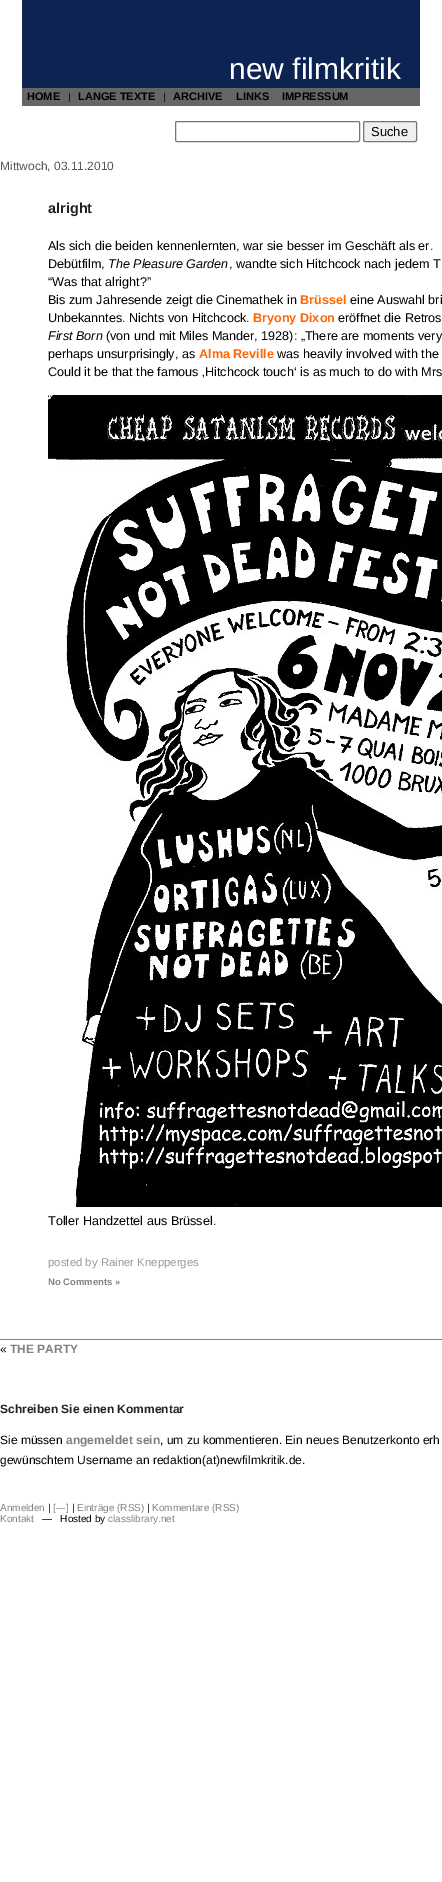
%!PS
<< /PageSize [442 1882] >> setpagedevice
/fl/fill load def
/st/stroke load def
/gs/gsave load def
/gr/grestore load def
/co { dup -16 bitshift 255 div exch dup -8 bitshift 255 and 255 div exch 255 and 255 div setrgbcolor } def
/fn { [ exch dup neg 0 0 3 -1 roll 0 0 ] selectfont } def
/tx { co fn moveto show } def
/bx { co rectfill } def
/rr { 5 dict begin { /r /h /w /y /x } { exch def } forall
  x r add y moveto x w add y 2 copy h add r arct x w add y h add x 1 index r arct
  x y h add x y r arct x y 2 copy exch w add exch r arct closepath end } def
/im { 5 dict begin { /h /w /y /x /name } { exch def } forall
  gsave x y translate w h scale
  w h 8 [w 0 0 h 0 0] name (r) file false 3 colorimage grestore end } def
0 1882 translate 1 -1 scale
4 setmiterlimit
0 0 442 1882 16#FFFFFF bx
22 0 398 88 16#0D2352 bx
22 88 398 18 16#666666 bx
16#767676 co
175.5 121.5 184 20 1.5 rr st
16#EFEFEF co
363.5 121.5 53 20 1.5 rr gs fl gr
16#767676 co
st
(media/1.raw) 48 395 394 812 im
0 1339 442 1 16#808080 bx
(new filmkritik) 229 79 /LiberationSans-Regular 30 16#FFFFFF tx
(HOME) 27 100 /LiberationSans-Bold 11 16#000000 tx
(|) 68 100 /LiberationSans-Regular 10 16#000000 tx
(LANGE TEXTE) 78 100 /LiberationSans-Bold 11 16#000000 tx
(|) 163 100 /LiberationSans-Regular 10 16#000000 tx
(ARCHIVE) 173 100 /LiberationSans-Bold 11 16#000000 tx
(LINKS) 236 100 /LiberationSans-Bold 11 16#000000 tx
(IMPRESSUM) 282 100 /LiberationSans-Bold 11 16#000000 tx
(Suche) 371 136 /LiberationSans-Regular 13 16#000000 tx
(Mittwoch, 03.11.2010) 0 170 /LiberationSans-Regular 12 16#555555 tx
(alright) 48 213 /LiberationSans-Bold 14.5 16#222222 tx
(Als sich die beiden kennenlernten, war sie besser im Geschäft als er.) 48 250 /LiberationSans-Regular 12.6 16#000000 tx
(Debütfilm,) 48 268 /LiberationSans-Regular 12.6 16#000000 tx
(The Pleasure Garden) 108 268 /LiberationSans-Italic 12.6 16#000000 tx
(, wandte sich Hitchcock nach jedem T) 229 268 /LiberationSans-Regular 12.6 16#000000 tx
(“Was that alright?”) 48 286 /LiberationSans-Regular 12.6 16#000000 tx
(Bis zum Jahresende zeigt die Cinemathek in) 48 304 /LiberationSans-Regular 12.6 16#000000 tx
(Brüssel) 300 304 /LiberationSans-Bold 12.6 16#FF6600 tx
(eine Auswahl bri) 350 304 /LiberationSans-Regular 12.6 16#000000 tx
(Unbekanntes. Nichts von Hitchcock.) 48 322 /LiberationSans-Regular 12.6 16#000000 tx
(Bryony Dixon) 253 322 /LiberationSans-Bold 12.6 16#FF6600 tx
(eröffnet die Retros) 338 322 /LiberationSans-Regular 12.6 16#000000 tx
(First Born) 48 340 /LiberationSans-Italic 12.6 16#000000 tx
(\(von und mit Miles Mander, 1928\): „There are moments very) 106 340 /LiberationSans-Regular 12.6 16#000000 tx
(perhaps unsurprisingly, as) 48 358 /LiberationSans-Regular 12.6 16#000000 tx
(Alma Reville) 199 358 /LiberationSans-Bold 12.6 16#FF6600 tx
(was heavily involved with the) 277 358 /LiberationSans-Regular 12.6 16#000000 tx
(Could it be that the famous ‚Hitchcock touch‘ is as much to do with Mrs) 48 376 /LiberationSans-Regular 12.6 16#000000 tx
(Toller Handzettel aus Brüssel.) 48 1225 /LiberationSans-Regular 12.6 16#000000 tx
(posted by Rainer Knepperges) 48 1266 /LiberationSans-Regular 11.4 16#999999 tx
(No Comments ») 48 1285 /LiberationSans-Bold 9.5 16#808080 tx
(«) 0 1353 /LiberationSans-Regular 12 16#000000 tx
(THE PARTY) 10 1353 /LiberationSans-Bold 12 16#808080 tx
(Schreiben Sie einen Kommentar) 0 1413 /LiberationSans-Bold 12 16#222222 tx
(Sie müssen) 0 1444 /LiberationSans-Regular 12 16#000000 tx
(angemeldet sein) 66 1444 /LiberationSans-Bold 12 16#808080 tx
(, um zu kommentieren. Ein neues Benutzerkonto erh) 160 1444 /LiberationSans-Regular 12 16#000000 tx
(gewünschtem Username an redaktion\(at\)newfilmkritik.de.) 0 1464 /LiberationSans-Regular 12 16#000000 tx
(Anmelden) 0 1511 /LiberationSans-Regular 10 16#808080 tx
(|) 48 1511 /LiberationSans-Regular 10 16#000000 tx
([---]) 53 1511 /LiberationSans-Regular 10 16#808080 tx
(|) 72 1511 /LiberationSans-Regular 10 16#000000 tx
(Einträge \(RSS\)) 77 1511 /LiberationSans-Regular 10 16#808080 tx
(|) 147 1511 /LiberationSans-Regular 10 16#000000 tx
(Kommentare \(RSS\)) 152 1511 /LiberationSans-Regular 10 16#808080 tx
(Kontakt) 0 1522 /LiberationSans-Regular 10 16#808080 tx
(—   Hosted by) 42 1522 /LiberationSans-Regular 10 16#000000 tx
(classlibrary.net) 108 1522 /LiberationSans-Regular 10 16#808080 tx
showpage
